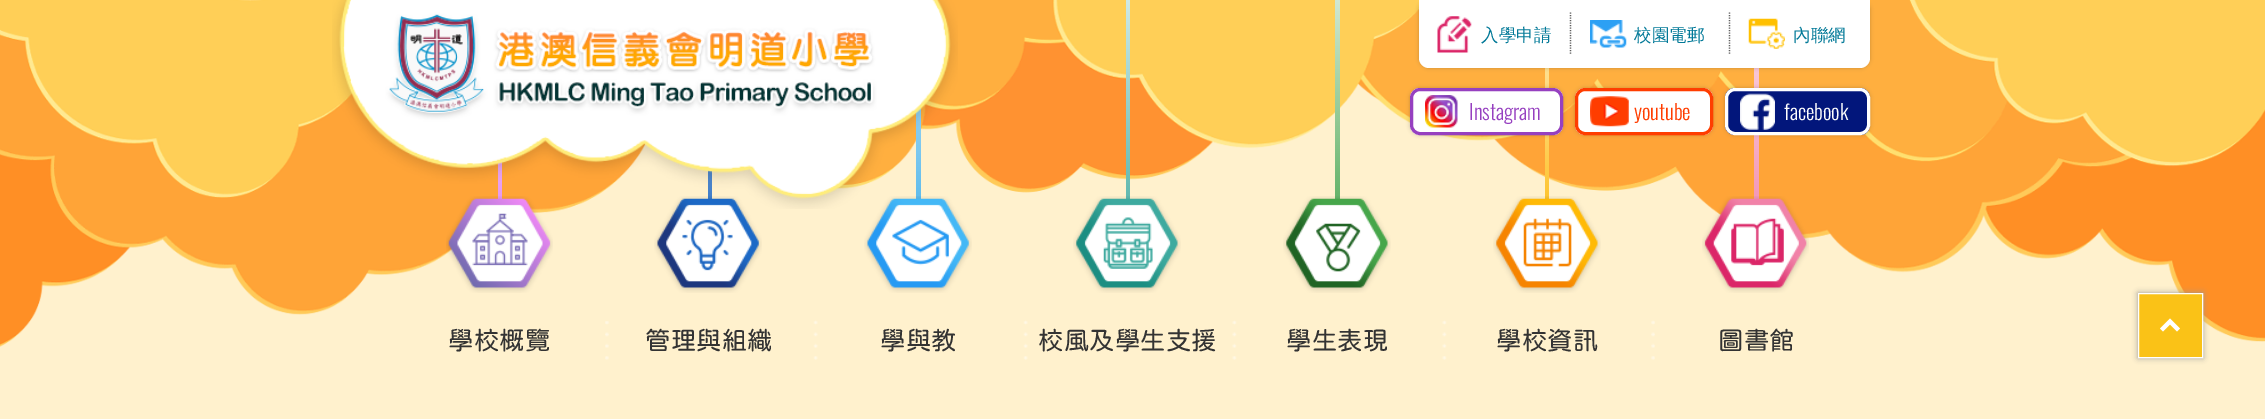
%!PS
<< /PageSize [2265 419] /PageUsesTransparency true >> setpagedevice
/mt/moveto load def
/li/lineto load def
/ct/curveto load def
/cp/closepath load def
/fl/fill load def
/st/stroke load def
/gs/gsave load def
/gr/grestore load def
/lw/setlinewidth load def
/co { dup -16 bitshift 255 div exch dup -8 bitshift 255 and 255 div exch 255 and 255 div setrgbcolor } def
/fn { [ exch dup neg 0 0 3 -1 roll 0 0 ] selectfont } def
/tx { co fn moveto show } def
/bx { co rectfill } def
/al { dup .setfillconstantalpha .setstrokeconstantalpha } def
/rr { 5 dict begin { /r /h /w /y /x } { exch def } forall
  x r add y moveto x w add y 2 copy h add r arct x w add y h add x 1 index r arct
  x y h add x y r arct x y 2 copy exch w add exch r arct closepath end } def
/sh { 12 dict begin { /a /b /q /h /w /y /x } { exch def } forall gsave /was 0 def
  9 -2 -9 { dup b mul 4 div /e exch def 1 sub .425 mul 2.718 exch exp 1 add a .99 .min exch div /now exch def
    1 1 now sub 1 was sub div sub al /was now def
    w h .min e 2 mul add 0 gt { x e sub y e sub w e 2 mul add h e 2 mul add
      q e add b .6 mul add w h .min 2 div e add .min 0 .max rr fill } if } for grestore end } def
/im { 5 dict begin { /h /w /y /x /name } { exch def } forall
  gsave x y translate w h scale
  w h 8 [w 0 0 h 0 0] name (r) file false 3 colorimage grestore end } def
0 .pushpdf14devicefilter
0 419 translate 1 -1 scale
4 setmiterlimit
0 0 2265 419 16#FFF1CD bx
(media/1.raw) 0 0 2265 347 im
gs 498 161 mt 502 161 li 502 199 li 498 199 li cp clip newpath
<< /ShadingType 2 /ColorSpace /DeviceRGB /Coords [499 -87 499 254] /Extend [true true] /Function << /FunctionType 2 /Domain [0 1] /C0 [1 1 1] /C1 [.878 .522 .929] /N 1 >> >> shfill gr
(media/9.raw) 446 196 107 97 im
gs 708 170 mt 712 170 li 712 199 li 708 199 li cp clip newpath
<< /ShadingType 2 /ColorSpace /DeviceRGB /Coords [709 -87 709 254] /Extend [true true] /Function << /FunctionType 2 /Domain [0 1] /C0 [1 1 1] /C1 [.106 .396 .749] /N 1 >> >> shfill gr
(media/11.raw) 654 196 108 97 im
gs 916 107 mt 921 107 li 921 199 li 916 199 li cp clip newpath
<< /ShadingType 2 /ColorSpace /DeviceRGB /Coords [919 -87 919 254] /Extend [true true] /Function << /FunctionType 2 /Domain [0 1] /C0 [1 1 1] /C1 [.255 .686 .91] /N 1 >> >> shfill gr
(media/13.raw) 864 196 108 97 im
(media/2.raw) 332 0 626 209 im
gs 1545 68 mt 1549 68 li 1549 199 li 1545 199 li cp clip newpath
<< /ShadingType 2 /ColorSpace /DeviceRGB /Coords [1547 -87 1547 254] /Extend [true true] /Function << /FunctionType 2 /Domain [0 1] /C0 [1 1 1] /C1 [.996 .729 .039] /N 1 >> >> shfill gr
gs 1754 68 mt 1759 68 li 1759 199 li 1754 199 li cp clip newpath
<< /ShadingType 2 /ColorSpace /DeviceRGB /Coords [1756 -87 1756 254] /Extend [true true] /Function << /FunctionType 2 /Domain [0 1] /C0 [1 1 1] /C1 [.945 .518 .667] /N 1 >> >> shfill gr
16#000000 co
1419 0 451 68 10 2 .2 sh
16#FFFFFF co
1419 0 mt 1870 0 li 1870 58 li 1870 63.5 1865.5 68 1860 68 ct 1429 68 li 1423.5 68 1419 63.5 1419 58 ct cp fl
(media/3.raw) 1437 16 35 37 im
16#5E5E5E co
1.2 lw
[1.25 1.25] 0 setdash
1570.5 12.5 mt 1570.5 55 li st
(media/4.raw) 1590 20 37 28 im
1729.5 12.5 mt 1729.5 55 li st
(media/5.raw) 1748 18 37 31 im
16#000000 co
1410 88 153 47 10 2 .2 sh
16#FFFFFF co
1410 88 153 47 10 rr fl
(media/6.raw) 1425 95 33 33 im
16#9640C0 co
3 lw
[] 0 setdash
1411.5 89.5 150 44 8.5 rr st
16#000000 co
1575 88 138 47 10 2 .2 sh
16#FFFFFF co
1575 88 138 47 10 rr fl
(media/7.raw) 1590 96 39 31 im
16#FF3D00 co
1576.5 89.5 135 44 8.5 rr st
16#000000 co
1725 88 145 47 10 2 .2 sh
16#02167B co
1725 88 145 47 10 rr fl
(media/8.raw) 1740 93 35 37 im
16#FFFFFF co
1726.5 89.5 142 44 8.5 rr st
(media/10.raw) 605 321 4 39 im
(media/12.raw) 813 320 5 40 im
(media/12.raw) 1023 320 5 40 im
gs 1126 0 mt 1130 0 li 1130 199 li 1126 199 li cp clip newpath
<< /ShadingType 2 /ColorSpace /DeviceRGB /Coords [1128 -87 1128 254] /Extend [true true] /Function << /FunctionType 2 /Domain [0 1] /C0 [1 1 1] /C1 [.259 .675 .631] /N 1 >> >> shfill gr
(media/14.raw) 1073 196 108 97 im
(media/15.raw) 1232 320 5 40 im
gs 1335 0 mt 1340 0 li 1340 199 li 1335 199 li cp clip newpath
<< /ShadingType 2 /ColorSpace /DeviceRGB /Coords [1338 -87 1338 254] /Extend [true true] /Function << /FunctionType 2 /Domain [0 1] /C0 [1 1 1] /C1 [.286 .651 .302] /N 1 >> >> shfill gr
(media/16.raw) 1283 196 108 97 im
(media/15.raw) 1442 320 5 40 im
(media/17.raw) 1493 196 108 97 im
(media/18.raw) 1651 320 4 40 im
(media/19.raw) 1702 196 107 97 im
16#999999 co
2138 293 65 65 0 3 1 sh
2139 294 63 63 16#FAC217 bx
16#FFFFFF co
2170 318.5 mt 2180 328.5 li 2177 331.5 li 2170 324.5 li 2163 331.5 li 2160 328.5 li cp fl
1 lw
2138.5 293.5 64 64 rectstroke
(入學申請) 1481 41 /WenQuanYiZenHei-Medium 17.5 16#027998 tx
(校園電郵) 1634 41 /WenQuanYiZenHei-Medium 17.5 16#027998 tx
(內聯網) 1793 41 /WenQuanYiZenHei-Medium 17.5 16#027998 tx
(Instagram) 1469 120 /Oswald-Light 21 16#9640C0 tx
(youtube) 1634 120 /Oswald-Light 21 16#FF3D00 tx
(facebook) 1784 120 /Oswald-Light 21 16#FFFFFF tx
(學校概覽) 448 349 /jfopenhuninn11-Regular 25.5 16#333333 tx
(管理與組織) 645 349 /jfopenhuninn11-Regular 25.5 16#333333 tx
(學與教) 880 349 /jfopenhuninn11-Regular 25.5 16#333333 tx
(校風及學生支援) 1038 349 /jfopenhuninn11-Regular 25.5 16#333333 tx
(學生表現) 1286 349 /jfopenhuninn11-Regular 25.5 16#333333 tx
(學校資訊) 1496 349 /jfopenhuninn11-Regular 25.5 16#333333 tx
(圖書館) 1718 349 /jfopenhuninn11-Regular 25.5 16#333333 tx
.poppdf14devicefilter showpage
